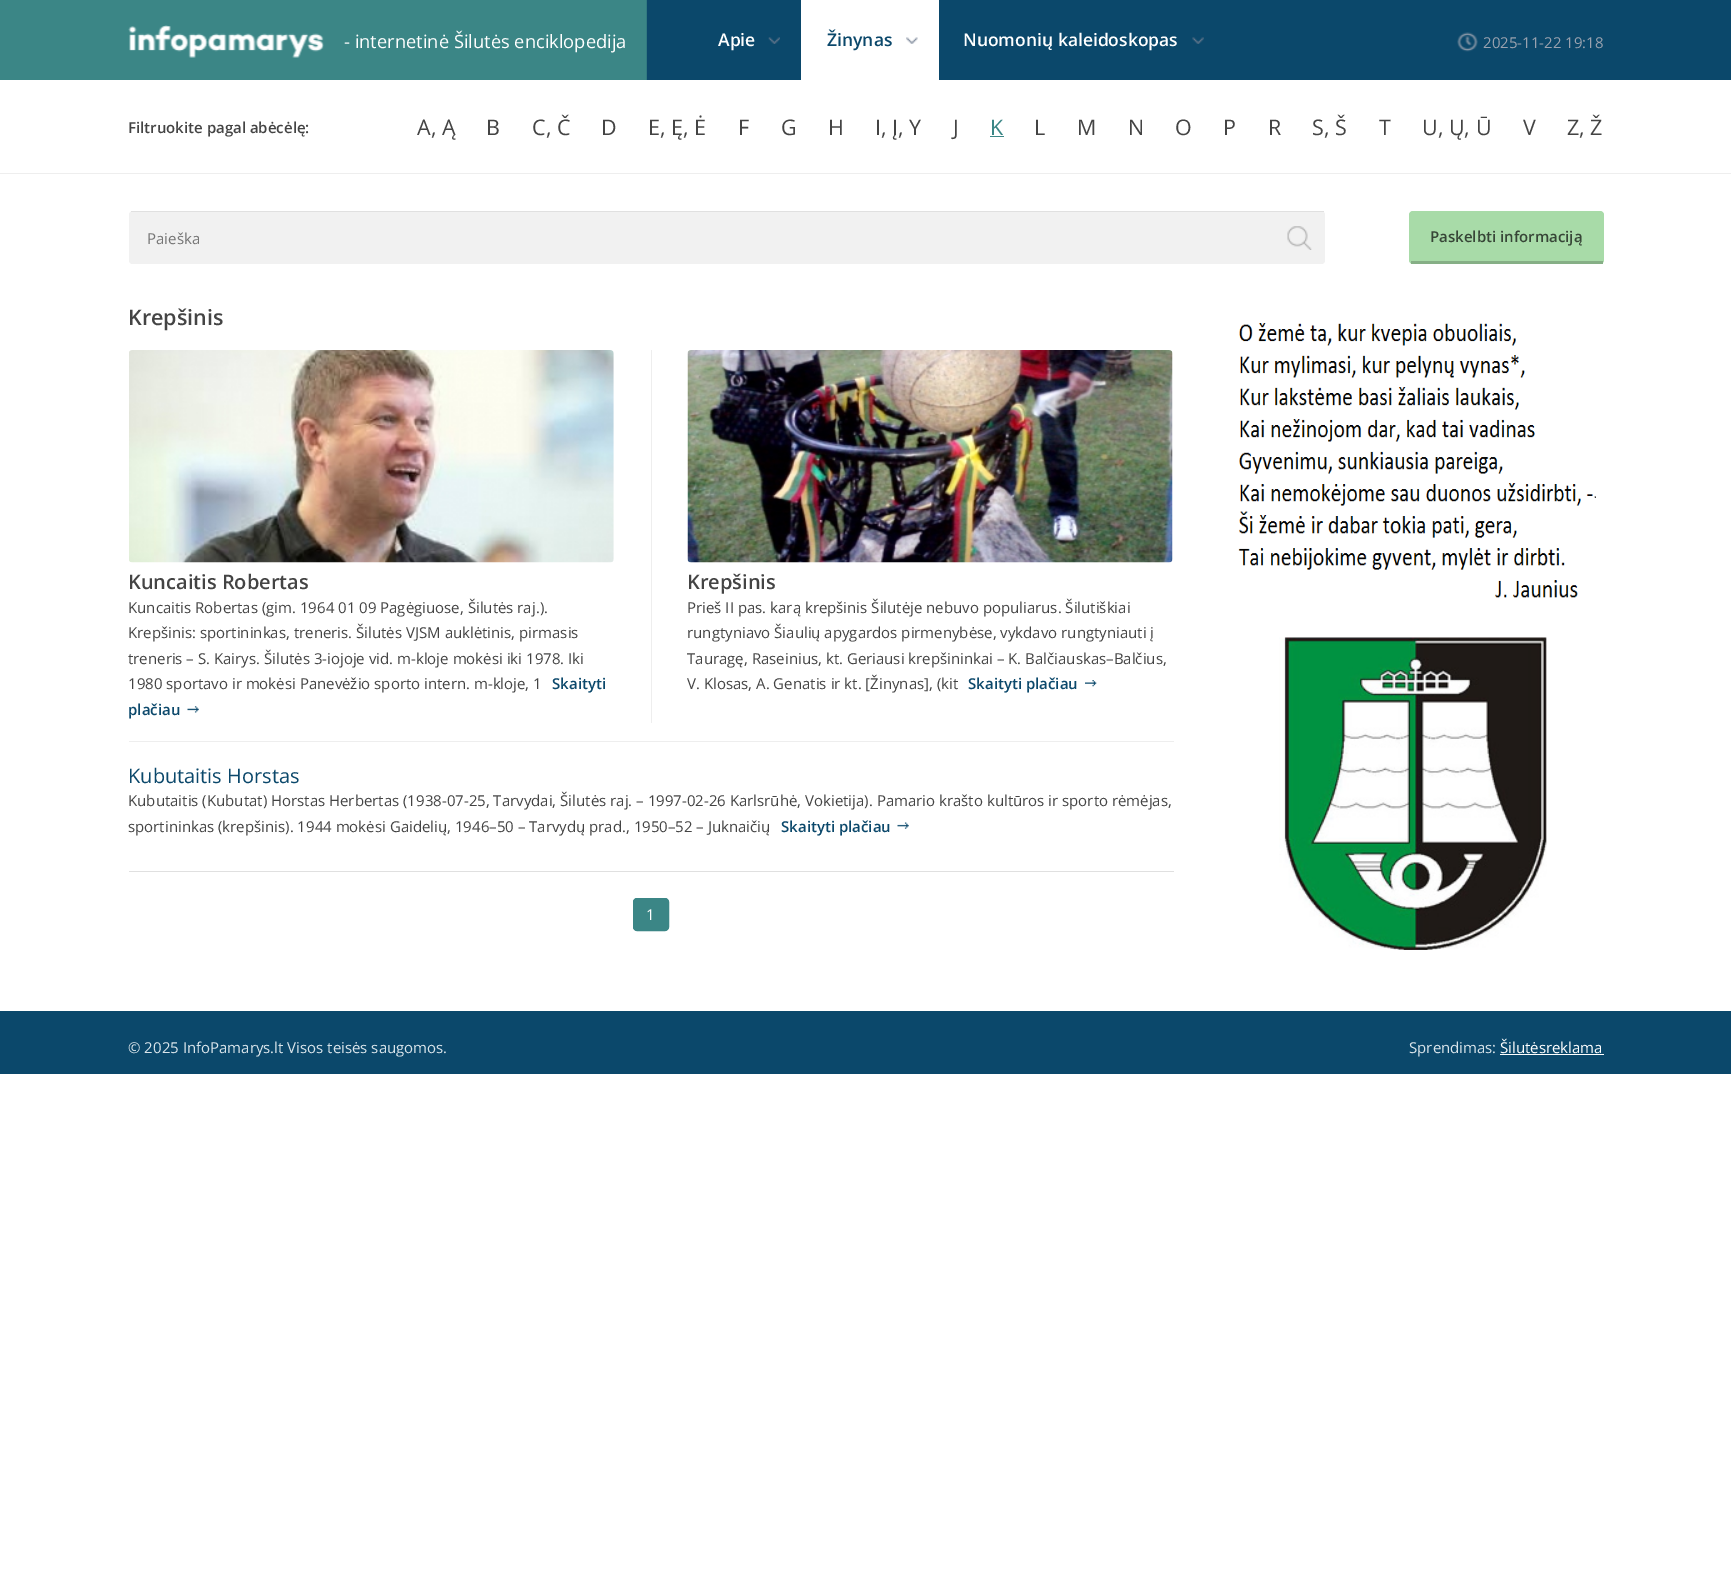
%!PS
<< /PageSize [1731 1575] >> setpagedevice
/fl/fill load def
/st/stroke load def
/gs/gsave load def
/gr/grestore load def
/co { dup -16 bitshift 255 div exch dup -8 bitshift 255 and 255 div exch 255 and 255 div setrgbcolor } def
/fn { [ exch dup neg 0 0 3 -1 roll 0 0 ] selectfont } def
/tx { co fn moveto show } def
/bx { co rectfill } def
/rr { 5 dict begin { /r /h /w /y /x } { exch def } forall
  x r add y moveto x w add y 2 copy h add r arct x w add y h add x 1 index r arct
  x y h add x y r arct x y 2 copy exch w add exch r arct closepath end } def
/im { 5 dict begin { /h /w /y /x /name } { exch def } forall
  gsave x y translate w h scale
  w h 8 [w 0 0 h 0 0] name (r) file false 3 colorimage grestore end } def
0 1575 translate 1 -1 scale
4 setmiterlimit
0 0 1731 1575 16#FFFFFF bx
(media/1.raw) 0 0 1731 80 im
(media/2.raw) 128 25 196 33 im
(media/3.raw) 768 37 12 7 im
801 0 138 80 16#FFFFFF bx
(media/4.raw) 906 37 12 7 im
(media/5.raw) 1192 37 12 7 im
(media/6.raw) 1457 32 21 20 im
0 173 1731 1 16#EEEEEE bx
990 136 14 1 16#3B8686 bx
16#F1F1F1 co
129 211 1196 53 4 rr fl
131 211 1193 1 16#E0E0E0 bx
16#F1F1F1 co
129 213 1145 51 4 rr fl
1274 213 51 51 4 rr fl
(media/7.raw) 1287 226 25 24 im
16#A8DBA8 co
1409 211 195 53 4 rr fl
1411 261 192 3 16#86AF86 bx
651 350 1 373 16#EEEEEE bx
(media/8.raw) 129 350 485 213 im
(media/9.raw) 187 706 12 7 im
(media/10.raw) 687 350 486 213 im
(media/11.raw) 1085 680 12 7 im
129 741 1045 1 16#EEEEEE bx
(media/12.raw) 897 822 12 7 im
129 871 1045 1 16#E0E0E0 bx
16#3B8686 co
633.5 898.5 35 32 3.5 rr gs fl gr
st
(media/13.raw) 1238 323 358 275 im
(media/14.raw) 1279 637 268 313 im
0 1011 1731 63 16#0B486B bx
1500 1054 104 1 16#FFFFFF bx
(- internetinė Šilutės enciklopedija) 344 48 /OpenSans-Regular 18.3 16#FFFFFF tx
(Apie) 718 46 /OpenSans-SemiBold 17.5 16#FFFFFF tx
(Žinynas) 827 46 /OpenSans-SemiBold 17.5 16#0B486B tx
(Nuomonių kaleidoskopas) 963 46 /OpenSans-SemiBold 17.5 16#FFFFFF tx
(2025-11-22 19:18) 1483 48 /OpenSans-Regular 15 16#9AA2AF tx
(Filtruokite pagal abėcėlę:) 128 133 /OpenSans-SemiBold 15 16#444444 tx
(A, Ą) 417 135 /OpenSans-Regular 21.5 16#444444 tx
(B) 486 135 /OpenSans-Regular 21.5 16#444444 tx
(C, Č) 532 135 /OpenSans-Regular 21.5 16#444444 tx
(D) 601 135 /OpenSans-Regular 21.5 16#444444 tx
(E, Ę, Ė) 648 135 /OpenSans-Regular 21.5 16#444444 tx
(F) 738 135 /OpenSans-Regular 21.5 16#444444 tx
(G) 781 135 /OpenSans-Regular 21.5 16#444444 tx
(H) 828 135 /OpenSans-Regular 21.5 16#444444 tx
(I, Į, Y) 875 135 /OpenSans-Regular 21.5 16#444444 tx
(J) 953 135 /OpenSans-Regular 21.5 16#444444 tx
(K) 990 135 /OpenSans-Regular 21.5 16#3B8686 tx
(L) 1034 135 /OpenSans-Regular 21.5 16#444444 tx
(M) 1077 135 /OpenSans-Regular 21.5 16#444444 tx
(N) 1128 135 /OpenSans-Regular 21.5 16#444444 tx
(O) 1175 135 /OpenSans-Regular 21.5 16#444444 tx
(P) 1223 135 /OpenSans-Regular 21.5 16#444444 tx
(R) 1268 135 /OpenSans-Regular 21.5 16#444444 tx
(S, Š) 1312 135 /OpenSans-Regular 21.5 16#444444 tx
(T) 1379 135 /OpenSans-Regular 21.5 16#444444 tx
(U, Ų, Ū) 1422 135 /OpenSans-Regular 21.5 16#444444 tx
(V) 1523 135 /OpenSans-Regular 21.5 16#444444 tx
(Z, Ž) 1567 135 /OpenSans-Regular 21.5 16#444444 tx
(Paieška) 147 244 /OpenSans-Regular 15 16#757575 tx
(Paskelbti informaciją) 1430 242 /OpenSans-SemiBold 15 16#374637 tx
(Krepšinis) 128 325 /OpenSans-SemiBold 21.5 16#444444 tx
(Kuncaitis Robertas) 128 589 /OpenSans-SemiBold 20 16#444444 tx
(Kuncaitis Robertas \(gim. 1964 01 09 Pagėgiuose, Šilutės raj.\).) 128 613 /OpenSans-Regular 15 16#444444 tx
(Krepšinis: sportininkas, treneris. Šilutės VJSM auklėtinis, pirmasis) 128 638 /OpenSans-Regular 15 16#444444 tx
(treneris – S. Kairys. Šilutės 3-iojoje vid. m-kloje mokėsi iki 1978. Iki) 128 664 /OpenSans-Regular 15 16#444444 tx
(1980 sportavo ir mokėsi Panevėžio sporto intern. m-kloje, 1) 128 689 /OpenSans-Regular 15 16#444444 tx
(Skaityti) 552 689 /OpenSans-SemiBold 15 16#0B486B tx
(plačiau) 128 715 /OpenSans-SemiBold 15 16#0B486B tx
(Krepšinis) 687 589 /OpenSans-SemiBold 20 16#444444 tx
(Prieš II pas. karą krepšinis Šilutėje nebuvo populiarus. Šilutiškiai) 687 613 /OpenSans-Regular 15 16#444444 tx
(rungtyniavo Šiaulių apygardos pirmenybėse, vykdavo rungtyniauti į) 687 638 /OpenSans-Regular 15 16#444444 tx
(Tauragę, Raseinius, kt. Geriausi krepšininkai – K. Balčiauskas–Balčius,) 687 664 /OpenSans-Regular 15 16#444444 tx
(V. Klosas, A. Genatis ir kt. [Žinynas], \(kit) 687 689 /OpenSans-Regular 15 16#444444 tx
(Skaityti plačiau) 968 689 /OpenSans-SemiBold 15 16#0B486B tx
(Kubutaitis Horstas) 128 783 /OpenSans-Regular 20 16#0B486B tx
(Kubutaitis \(Kubutat\) Horstas Herbertas \(1938-07-25, Tarvydai, Šilutės raj. – 1997-02-26 Karlsrūhė, Vokietija\). Pamario krašto kultūros ir sporto rėmėjas,) 128 806 /OpenSans-Regular 15 16#444444 tx
(sportininkas \(krepšinis\). 1944 mokėsi Gaidelių, 1946–50 – Tarvydų prad., 1950–52 – Juknaičių) 128 832 /OpenSans-Regular 15 16#444444 tx
(Skaityti plačiau) 781 832 /OpenSans-SemiBold 15 16#0B486B tx
(1) 646 920 /OpenSans-Regular 15 16#FFFFFF tx
(© 2025 InfoPamarys.lt Visos teisės saugomos.) 128 1053 /OpenSans-Regular 15 16#DAE5EB tx
(Sprendimas:) 1409 1053 /OpenSans-Regular 15 16#DAE5EB tx
(Šilutėsreklama) 1500 1053 /OpenSans-Regular 15 16#FFFFFF tx
showpage
